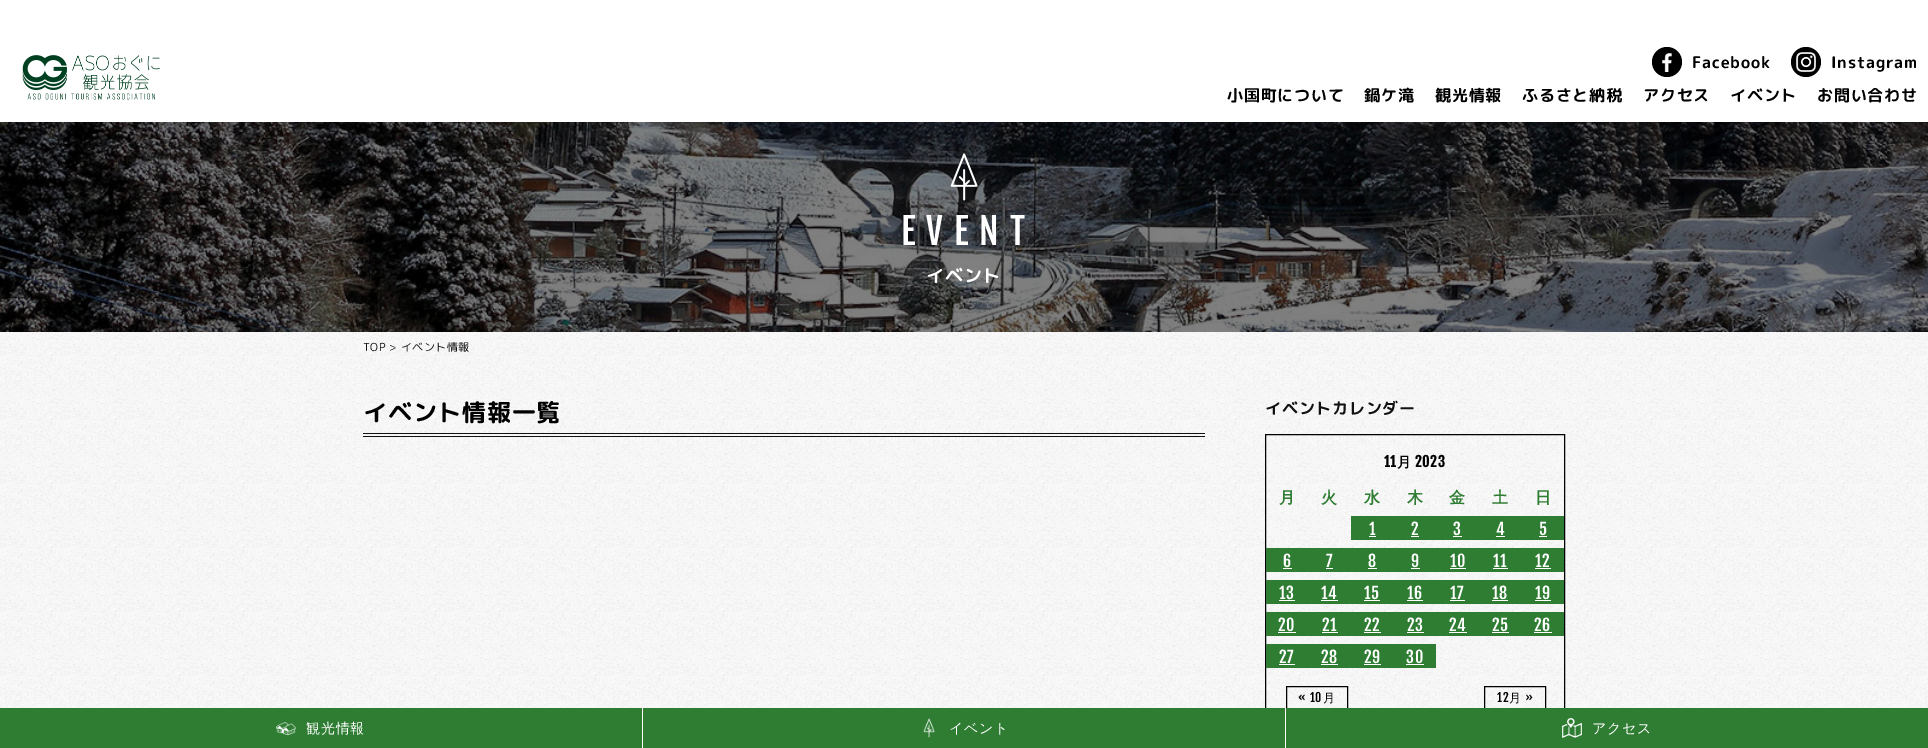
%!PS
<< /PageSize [1928 748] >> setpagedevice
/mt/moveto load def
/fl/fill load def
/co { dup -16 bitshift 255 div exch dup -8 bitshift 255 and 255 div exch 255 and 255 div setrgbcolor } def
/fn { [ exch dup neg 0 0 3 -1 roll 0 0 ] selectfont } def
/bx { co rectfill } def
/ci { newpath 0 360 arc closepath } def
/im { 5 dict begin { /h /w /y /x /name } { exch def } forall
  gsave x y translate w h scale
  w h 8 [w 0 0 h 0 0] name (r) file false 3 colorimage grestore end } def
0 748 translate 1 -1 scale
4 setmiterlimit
0 0 1928 748 16#FFFFFF bx
(media/1.raw) 22 55 138 45 im
16#000000 co
1667 62 15 ci fl
(media/2.raw) 1662 53 10 19 im
1806 62 15 ci fl
(media/3.raw) 1796 52 20 20 im
(media/4.raw) 0 122 1928 210 im
(media/5.raw) 950 153 28 48 im
(media/6.raw) 0 332 1928 376 im
363 433 842 1 16#111111 bx
363 436 842 1 16#111111 bx
16#000000 co
1265.5 434.5 299 299 rectstroke
1351 516 213 24 16#2E7D32 bx
1369 536 7 1 16#FFFFFF bx
1411 536 8 1 16#FFFFFF bx
1453 536 9 1 16#FFFFFF bx
1496 536 9 1 16#FFFFFF bx
1539 536 8 1 16#FFFFFF bx
1266 548 298 24 16#2E7D32 bx
1283 568 9 1 16#FFFFFF bx
1326 568 7 1 16#FFFFFF bx
1368 568 9 1 16#FFFFFF bx
1411 568 9 1 16#FFFFFF bx
1450 568 16 1 16#FFFFFF bx
1493 568 15 1 16#FFFFFF bx
1535 568 16 1 16#FFFFFF bx
1266 580 298 24 16#2E7D32 bx
1279 600 16 1 16#FFFFFF bx
1321 600 17 1 16#FFFFFF bx
1364 600 16 1 16#FFFFFF bx
1407 600 16 1 16#FFFFFF bx
1450 600 15 1 16#FFFFFF bx
1492 600 16 1 16#FFFFFF bx
1535 600 16 1 16#FFFFFF bx
1266 612 298 24 16#2E7D32 bx
1278 632 18 1 16#FFFFFF bx
1322 632 16 1 16#FFFFFF bx
1364 632 17 1 16#FFFFFF bx
1407 632 17 1 16#FFFFFF bx
1449 632 18 1 16#FFFFFF bx
1492 632 17 1 16#FFFFFF bx
1534 632 18 1 16#FFFFFF bx
1266 644 170 24 16#2E7D32 bx
1279 664 16 1 16#FFFFFF bx
1321 664 17 1 16#FFFFFF bx
1364 664 17 1 16#FFFFFF bx
1406 664 18 1 16#FFFFFF bx
16#000000 co
1286.5 686.5 61 23 rectstroke
1484.5 686.5 61 23 rectstroke
0 708 1928 40 16#2E7D32 bx
(media/7.raw) 276 722 20 14 im
642 708 1 40 16#FFFFFF bx
(media/8.raw) 923 718 12 20 im
1285 708 1 40 16#FFFFFF bx
(media/9.raw) 1562 718 20 20 im
/RoundedMplus1c-Bold 16 fn
16#000000 co
1692 68 mt .75 0 (Facebook) ashow
1831 68 mt .75 0 (Instagram) ashow
1227 101 mt .75 0 (小国町について) ashow
1364 101 mt .75 0 (鍋ケ滝) ashow
1435 101 mt .75 0 (観光情報) ashow
1522 101 mt .75 0 (ふるさと納税) ashow
1643 101 mt .75 0 (アクセス) ashow
1730 101 mt .75 0 (イベント) ashow
1817 101 mt .75 0 (お問い合わせ) ashow
/FjallaOne-Regular 36 fn
16#FFFFFF co
901 245 mt 11 0 (EVENT) ashow
/RoundedMplus1c-Bold 18 fn
926 282 mt .75 0 (イベント) ashow
/RoundedMplus1c-Regular 11 fn
16#111111 co
363 351 mt .5 0 (TOP > イベント情報) ashow
/RoundedMplus1c-Bold 24 fn
16#000000 co
363 421 mt .75 0 (イベント情報一覧) ashow
/RoundedMplus1c-Bold 16 fn
16#111111 co
1265 414 mt .75 0 (イベントカレンダー) ashow
/FjallaOne-Bold 14 fn
16#000000 co
1384 467 mt .75 0 (11) ashow
/WenQuanYiZenHei-Bold 14 fn
1397 467 mt .75 0 (月) ashow
/FjallaOne-Bold 14 fn
1415 467 mt .75 0 (2023) ashow
/WenQuanYiZenHei-Bold 16 fn
16#2E7D32 co
1279 503 mt .75 0 (月) ashow
1321 503 mt .75 0 (火) ashow
1364 503 mt .75 0 (水) ashow
1407 503 mt .75 0 (木) ashow
1449 503 mt .75 0 (金) ashow
1492 503 mt .75 0 (土) ashow
1535 503 mt .75 0 (日) ashow
/FjallaOne-Regular 16 fn
16#FFFFFF co
1369 535 mt .75 0 (1) ashow
1411 535 mt .75 0 (2) ashow
1453 535 mt .75 0 (3) ashow
1496 535 mt .75 0 (4) ashow
1539 535 mt .75 0 (5) ashow
1283 567 mt .75 0 (6) ashow
1326 567 mt .75 0 (7) ashow
1368 567 mt .75 0 (8) ashow
1411 567 mt .75 0 (9) ashow
1450 567 mt .75 0 (10) ashow
1493 567 mt .75 0 (11) ashow
1535 567 mt .75 0 (12) ashow
1279 599 mt .75 0 (13) ashow
1321 599 mt .75 0 (14) ashow
1364 599 mt .75 0 (15) ashow
1407 599 mt .75 0 (16) ashow
1450 599 mt .75 0 (17) ashow
1492 599 mt .75 0 (18) ashow
1535 599 mt .75 0 (19) ashow
1278 631 mt .75 0 (20) ashow
1322 631 mt .75 0 (21) ashow
1364 631 mt .75 0 (22) ashow
1407 631 mt .75 0 (23) ashow
1449 631 mt .75 0 (24) ashow
1492 631 mt .75 0 (25) ashow
1534 631 mt .75 0 (26) ashow
1279 663 mt .75 0 (27) ashow
1321 663 mt .75 0 (28) ashow
1364 663 mt .75 0 (29) ashow
1406 663 mt .75 0 (30) ashow
/FjallaOne-Regular 12 fn
16#000000 co
1298 702 mt .75 0 (« 10) ashow
/WenQuanYiZenHei-Medium 12 fn
1323 702 mt .75 0 (月) ashow
/FjallaOne-Regular 12 fn
1497 702 mt .75 0 (12) ashow
/WenQuanYiZenHei-Medium 12 fn
1509 702 mt .75 0 (月) ashow
/FjallaOne-Regular 12 fn
1525 702 mt .75 0 (») ashow
/WenQuanYiZenHei-Medium 14 fn
16#FFFFFF co
306 733 mt .75 0 (観光情報) ashow
949 733 mt .75 0 (イベント) ashow
1592 733 mt .75 0 (アクセス) ashow
showpage
